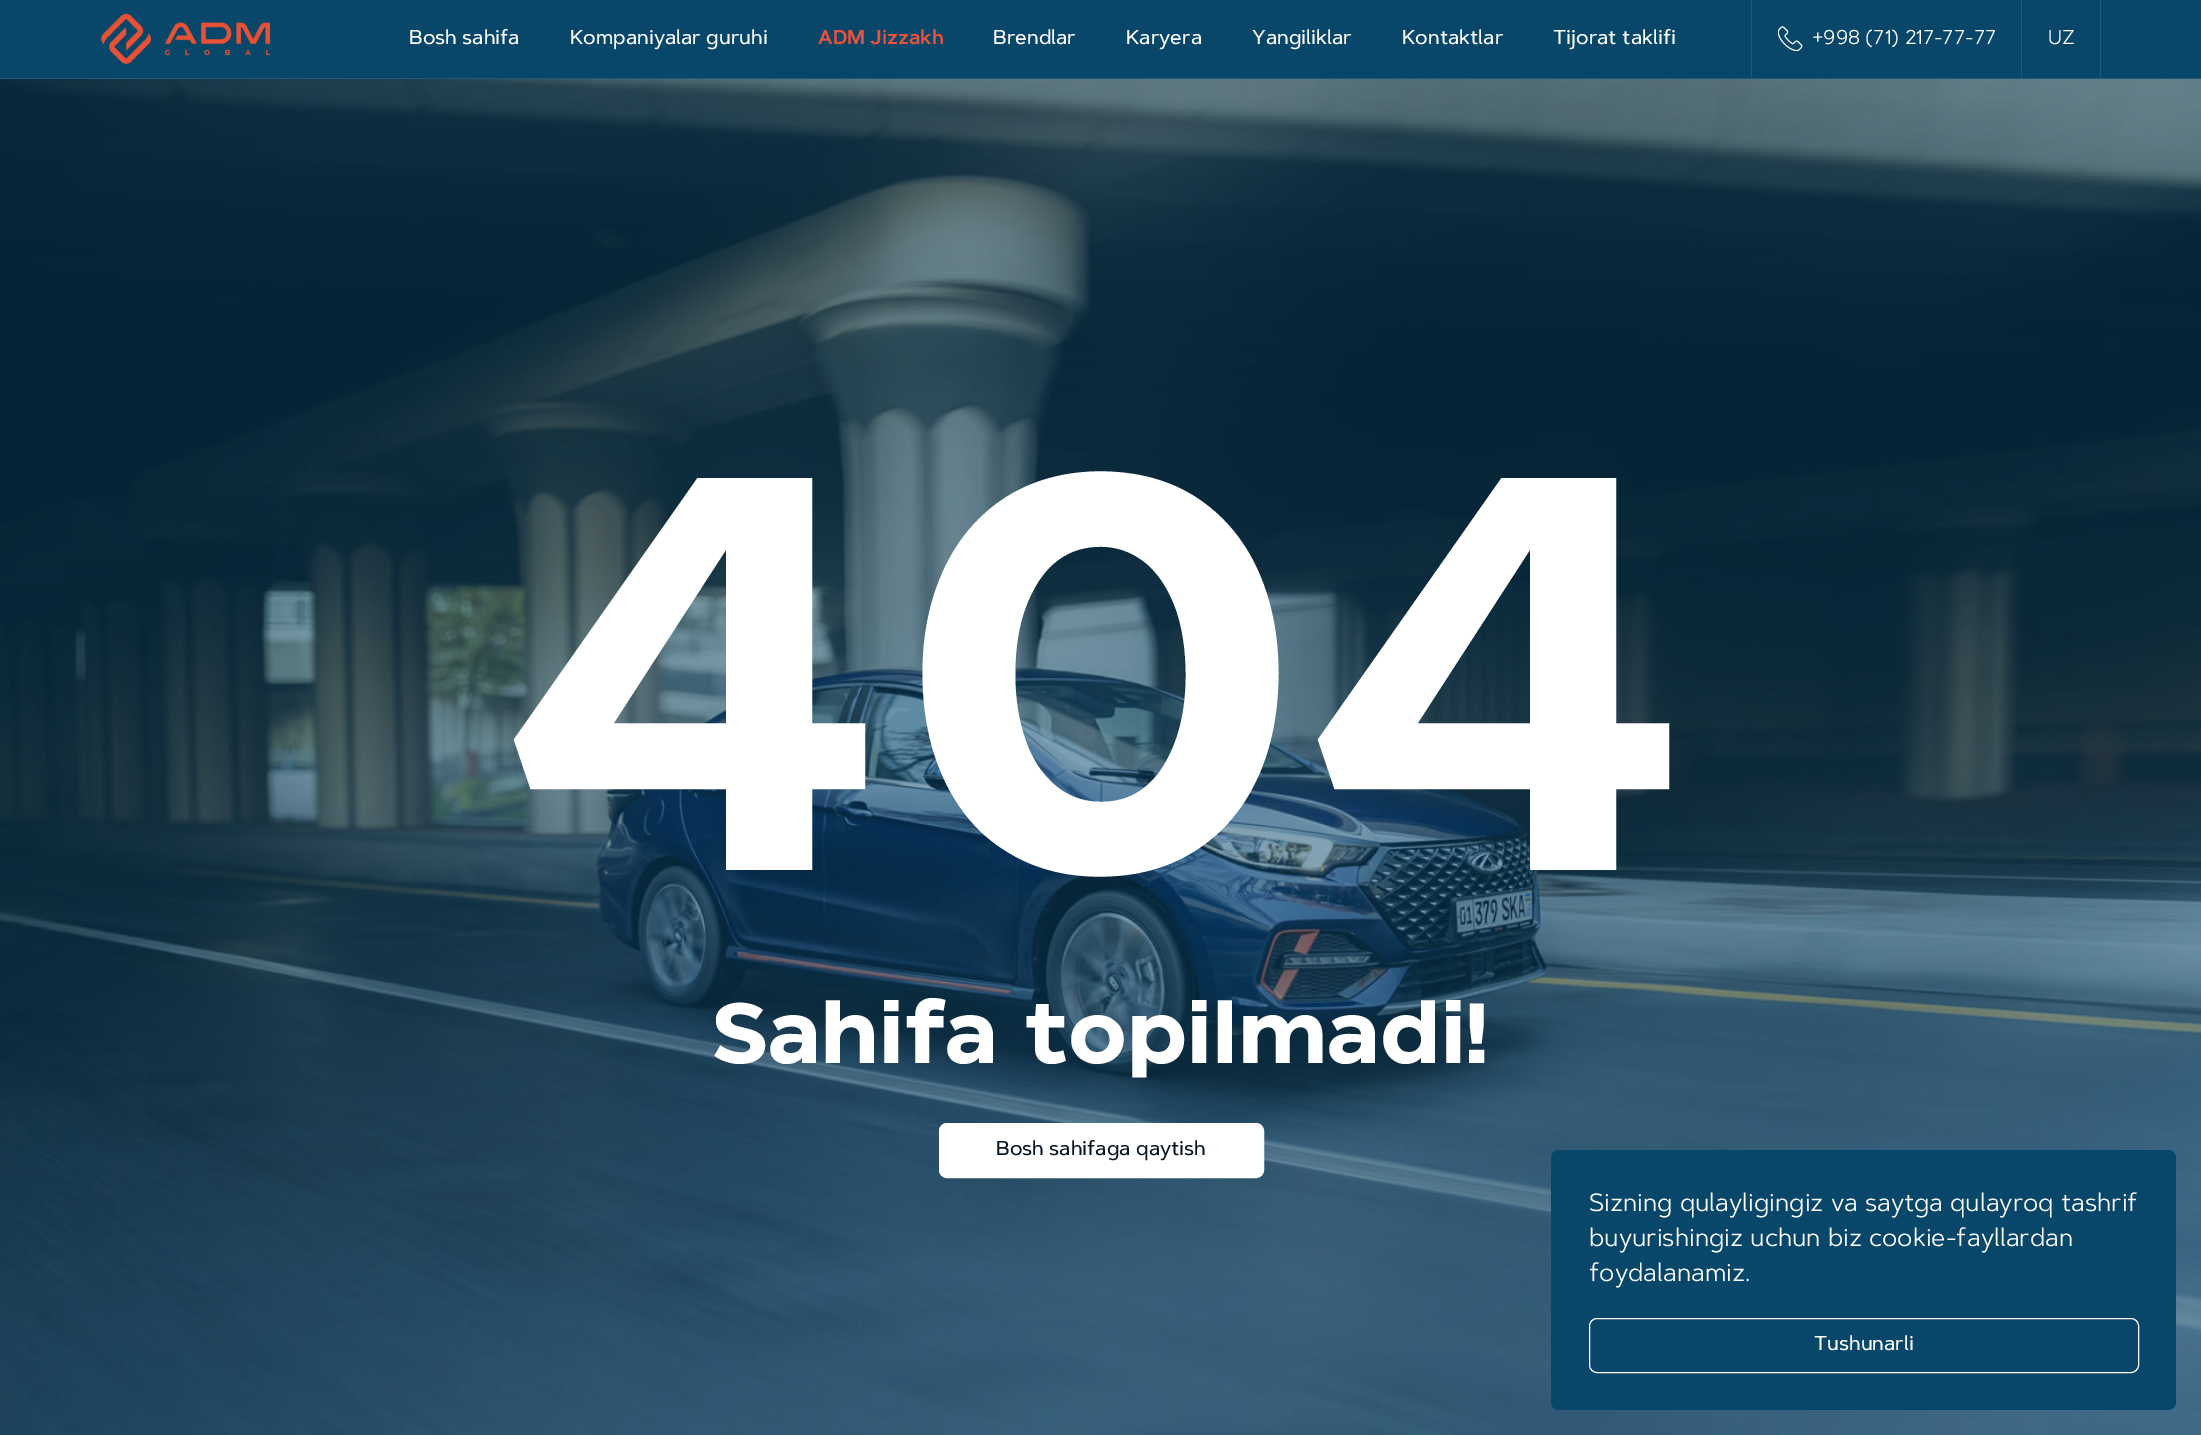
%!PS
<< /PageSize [2201 1435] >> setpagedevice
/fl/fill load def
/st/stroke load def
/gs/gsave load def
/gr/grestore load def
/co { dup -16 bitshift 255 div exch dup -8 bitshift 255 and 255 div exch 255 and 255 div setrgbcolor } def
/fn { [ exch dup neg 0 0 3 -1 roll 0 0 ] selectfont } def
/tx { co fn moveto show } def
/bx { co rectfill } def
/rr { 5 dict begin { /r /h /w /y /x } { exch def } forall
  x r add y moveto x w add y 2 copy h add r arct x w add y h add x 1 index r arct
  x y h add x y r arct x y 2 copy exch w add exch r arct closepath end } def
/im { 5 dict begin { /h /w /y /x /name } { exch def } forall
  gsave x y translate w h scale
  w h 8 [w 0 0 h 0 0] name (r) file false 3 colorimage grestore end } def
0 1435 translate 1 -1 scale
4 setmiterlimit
0 0 2201 1435 16#FFFFFF bx
0 0 2201 78 16#08476A bx
0 78 2201 1 16#215979 bx
(media/1.raw) 101 13 169 51 im
2021 0 1 78 16#215979 bx
1751 0 1 78 16#215979 bx
(media/2.raw) 1778 26 25 25 im
2100 0 1 78 16#215979 bx
(media/3.raw) 0 79 2201 1356 im
16#FFFFFF co
939.5 1123.5 324 54 7.5 rr gs fl gr
st
16#08476A co
1551 1150 625 260 8 rr fl
16#FFFFFF co
1589.5 1318.5 549 54 7.5 rr st
(Bosh sahifa) 409 44 /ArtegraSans-Medium 20 16#FFFFFF tx
(Kompaniyalar guruhi) 570 44 /ArtegraSans-Medium 20 16#FFFFFF tx
(ADM Jizzakh) 818 44 /ArtegraSans-SemiBold 20 16#EA523B tx
(Brendlar) 993 44 /ArtegraSans-Medium 20 16#FFFFFF tx
(Karyera) 1126 44 /ArtegraSans-Medium 20 16#FFFFFF tx
(Yangiliklar) 1252 44 /ArtegraSans-Medium 20 16#FFFFFF tx
(Kontaktlar) 1402 44 /ArtegraSans-Medium 20 16#FFFFFF tx
(Tijorat taklifi) 1553 44 /ArtegraSans-Medium 20 16#FFFFFF tx
(+998 \(71\) 217-77-77) 1812 44 /ArtegraSans-Regular 20 16#FFFFFF tx
(UZ) 2048 44 /ArtegraSans-Regular 20 16#FFFFFF tx
(404) 503 870 /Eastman-Bold 562.5 16#FFFFFF tx
(Sahifa topilmadi!) 712 1063 /Eastman-Bold 85 16#FFFFFF tx
(Bosh sahifaga qaytish) 996 1155 /ArtegraSans-Medium 20 16#071622 tx
(Sizning qulayligingiz va saytga qulayroq tashrif) 1589 1211 /ArtegraSans-Regular 25 16#FFFFFF tx
(buyurishingiz uchun biz cookie-fayllardan) 1589 1246 /ArtegraSans-Regular 25 16#FFFFFF tx
(foydalanamiz.) 1589 1281 /ArtegraSans-Regular 25 16#FFFFFF tx
(Tushunarli) 1814 1350 /ArtegraSans-Medium 20 16#FFFFFF tx
showpage
